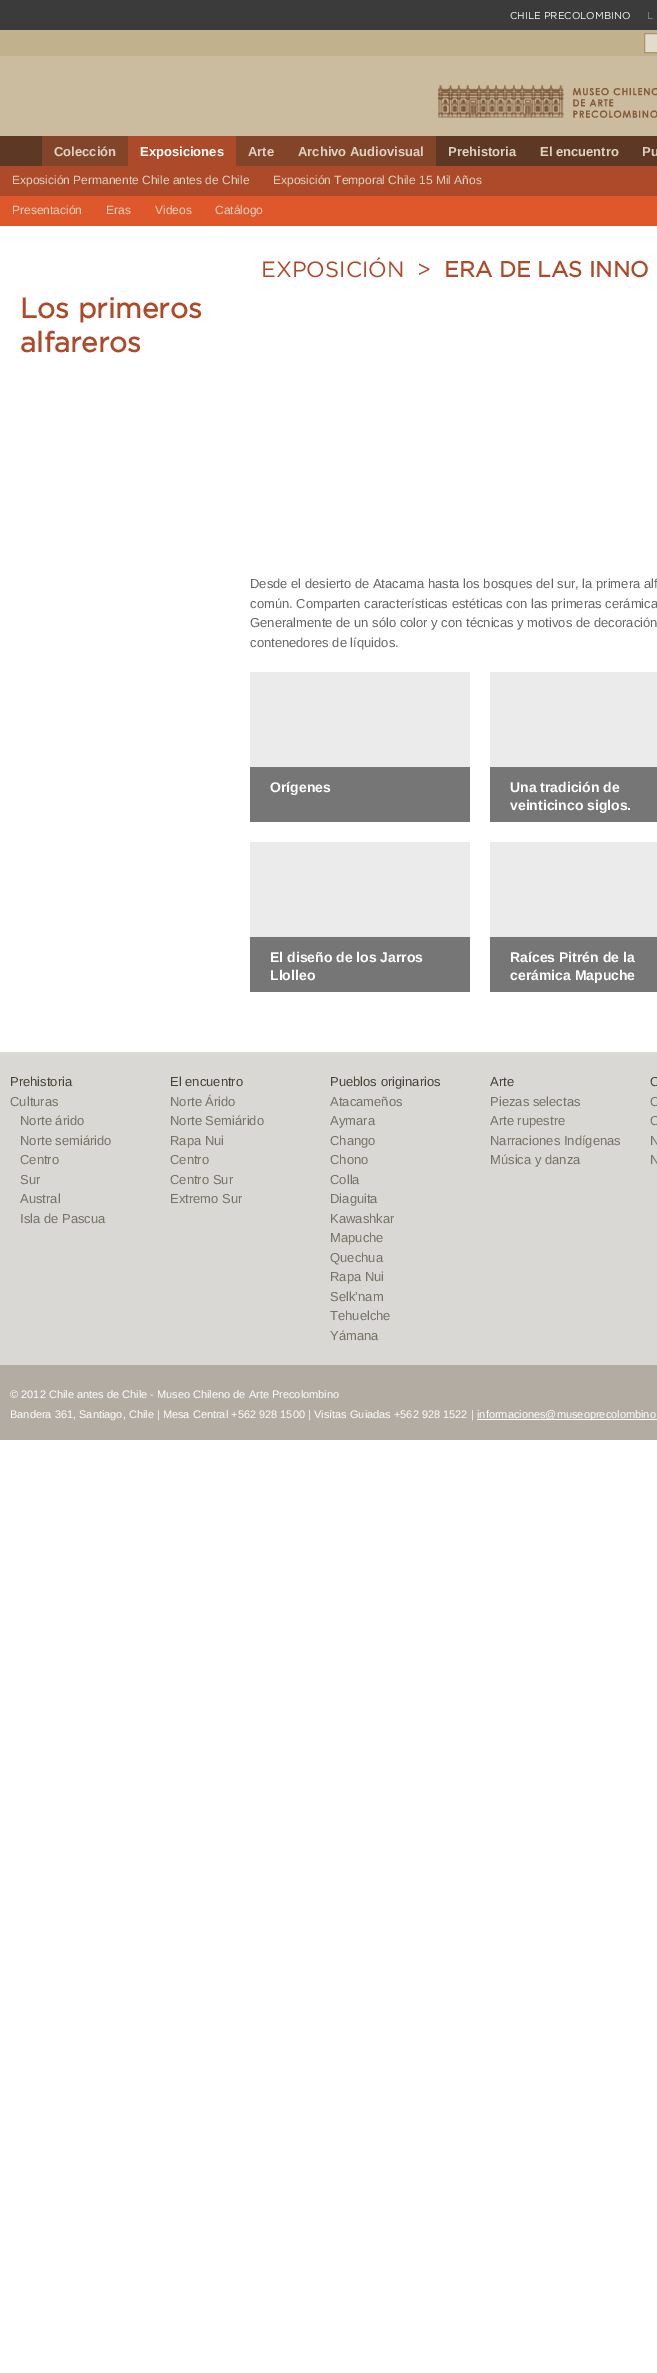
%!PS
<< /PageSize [657 2373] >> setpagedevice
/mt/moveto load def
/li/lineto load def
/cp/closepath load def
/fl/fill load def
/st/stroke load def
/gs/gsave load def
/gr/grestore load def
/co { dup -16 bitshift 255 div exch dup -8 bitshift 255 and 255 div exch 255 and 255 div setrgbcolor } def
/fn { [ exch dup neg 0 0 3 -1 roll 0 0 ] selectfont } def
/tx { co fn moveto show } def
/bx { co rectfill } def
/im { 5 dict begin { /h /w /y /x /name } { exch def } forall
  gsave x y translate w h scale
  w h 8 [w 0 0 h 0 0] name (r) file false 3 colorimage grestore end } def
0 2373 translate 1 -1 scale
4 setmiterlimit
0 0 657 2373 16#FFFFFF bx
0 0 657 30 16#3B3B3B bx
0 30 657 26 16#C2B18D bx
16#E3DBCB co
644.5 33.5 mt 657.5 33.5 li 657.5 52.5 li 644.5 52.5 li cp gs fl gr
16#AA9473 co
st
0 56 657 80 16#CBBC9F bx
(media/1.raw) 438 85 219 33 im
0 136 657 30 16#5D3925 bx
42 136 86 30 16#82452A bx
128 136 108 30 16#AD4A2A bx
236 136 200 30 16#82452A bx
0 166 657 30 16#AD4A2A bx
0 196 657 30 16#DF582B bx
250 672 220 95 16#EBEBEB bx
250 767 220 55 16#767676 bx
490 672 167 95 16#EBEBEB bx
490 767 167 55 16#767676 bx
250 842 220 95 16#EBEBEB bx
250 937 220 55 16#767676 bx
490 842 167 95 16#EBEBEB bx
490 937 167 55 16#767676 bx
0 1052 657 313 16#D9D8D5 bx
0 1365 657 75 16#B2ACA3 bx
477 1419 180 1 16#FFFFFF bx
(CHILE PRECOLOMBINO) 510 19 /Gotham-Regular 10 16#FFFFFF tx
(L) 647 19 /Gotham-Regular 10 16#8D8D8D tx
(Colección) 54 156 /LiberationSans-Bold 13 16#DDD4C0 tx
(Exposiciones) 140 156 /LiberationSans-Bold 13 16#FFFFFF tx
(Arte) 248 156 /LiberationSans-Bold 13 16#DDD4C0 tx
(Archivo Audiovisual) 298 156 /LiberationSans-Bold 13 16#DDD4C0 tx
(Prehistoria) 448 156 /LiberationSans-Bold 13 16#DDD4C0 tx
(El encuentro) 540 156 /LiberationSans-Bold 13 16#DDD4C0 tx
(Pu) 642 156 /LiberationSans-Bold 13 16#DDD4C0 tx
(Exposición Permanente Chile antes de Chile) 12 184 /LiberationSans-Regular 12 16#DDD4C0 tx
(Exposición Temporal Chile 15 Mil Años) 273 184 /LiberationSans-Regular 12 16#DDD4C0 tx
(Presentación) 12 214 /LiberationSans-Regular 12 16#DDD4C0 tx
(Eras) 106 214 /LiberationSans-Regular 12 16#DDD4C0 tx
(Videos) 155 214 /LiberationSans-Regular 12 16#DDD4C0 tx
(Catálogo) 215 214 /LiberationSans-Regular 12 16#DDD4C0 tx
(Los primeros) 20 318 /Gotham-Bold 28 16#AD4A2A tx
(alfareros) 20 352 /Gotham-Bold 28 16#AD4A2A tx
(EXPOSICIÓN) 261 277 /Gotham-Regular 22 16#AD4A2A tx
(>) 417 277 /Gotham-Regular 22 16#AD4A2A tx
(ERA DE LAS INNO) 444 277 /Gotham-Bold 22 16#AD4A2A tx
(Desde el desierto de Atacama hasta los bosques del sur, la primera alf) 250 588 /LiberationSans-Regular 13 16#666666 tx
(común. Comparten características estéticas con las primeras cerámica) 250 608 /LiberationSans-Regular 13 16#666666 tx
(Generalmente de un sólo color y con técnicas y motivos de decoración) 250 627 /LiberationSans-Regular 13 16#666666 tx
(contenedores de líquidos.) 250 647 /LiberationSans-Regular 13 16#666666 tx
(Orígenes) 270 792 /LiberationSans-Bold 14 16#FFFFFF tx
(Una tradición de) 510 792 /LiberationSans-Bold 14 16#FFFFFF tx
(veinticinco siglos.) 510 810 /LiberationSans-Bold 14 16#FFFFFF tx
(El diseño de los Jarros) 270 962 /LiberationSans-Bold 14 16#FFFFFF tx
(Llolleo) 270 980 /LiberationSans-Bold 14 16#FFFFFF tx
(Raíces Pitrén de la) 510 962 /LiberationSans-Bold 14 16#FFFFFF tx
(cerámica Mapuche) 510 980 /LiberationSans-Bold 14 16#FFFFFF tx
(Prehistoria) 10 1086 /LiberationSans-Regular 13 16#464234 tx
(Culturas) 10 1106 /LiberationSans-Regular 13 16#777264 tx
(Norte árido) 20 1125 /LiberationSans-Regular 13 16#777264 tx
(Norte semiárido) 20 1145 /LiberationSans-Regular 13 16#777264 tx
(Centro) 20 1164 /LiberationSans-Regular 13 16#777264 tx
(Sur) 20 1184 /LiberationSans-Regular 13 16#777264 tx
(Austral) 20 1203 /LiberationSans-Regular 13 16#777264 tx
(Isla de Pascua) 20 1223 /LiberationSans-Regular 13 16#777264 tx
(El encuentro) 170 1086 /LiberationSans-Regular 13 16#464234 tx
(Norte Árido) 170 1106 /LiberationSans-Regular 13 16#777264 tx
(Norte Semiárido) 170 1125 /LiberationSans-Regular 13 16#777264 tx
(Rapa Nui) 170 1145 /LiberationSans-Regular 13 16#777264 tx
(Centro) 170 1164 /LiberationSans-Regular 13 16#777264 tx
(Centro Sur) 170 1184 /LiberationSans-Regular 13 16#777264 tx
(Extremo Sur) 170 1203 /LiberationSans-Regular 13 16#777264 tx
(Pueblos originarios) 330 1086 /LiberationSans-Regular 13 16#464234 tx
(Atacameños) 330 1106 /LiberationSans-Regular 13 16#777264 tx
(Aymara) 330 1125 /LiberationSans-Regular 13 16#777264 tx
(Chango) 330 1145 /LiberationSans-Regular 13 16#777264 tx
(Chono) 330 1164 /LiberationSans-Regular 13 16#777264 tx
(Colla) 330 1184 /LiberationSans-Regular 13 16#777264 tx
(Diaguita) 330 1203 /LiberationSans-Regular 13 16#777264 tx
(Kawashkar) 330 1223 /LiberationSans-Regular 13 16#777264 tx
(Mapuche) 330 1242 /LiberationSans-Regular 13 16#777264 tx
(Quechua) 330 1262 /LiberationSans-Regular 13 16#777264 tx
(Rapa Nui) 330 1281 /LiberationSans-Regular 13 16#777264 tx
(Selk’nam) 330 1301 /LiberationSans-Regular 13 16#777264 tx
(Tehuelche) 330 1320 /LiberationSans-Regular 13 16#777264 tx
(Yámana) 330 1340 /LiberationSans-Regular 13 16#777264 tx
(Arte) 490 1086 /LiberationSans-Regular 13 16#464234 tx
(Piezas selectas) 490 1106 /LiberationSans-Regular 13 16#777264 tx
(Arte rupestre) 490 1125 /LiberationSans-Regular 13 16#777264 tx
(Narraciones Indígenas) 490 1145 /LiberationSans-Regular 13 16#777264 tx
(Música y danza) 490 1164 /LiberationSans-Regular 13 16#777264 tx
(C) 650 1086 /LiberationSans-Regular 13 16#464234 tx
(C) 650 1106 /LiberationSans-Regular 13 16#777264 tx
(C) 650 1125 /LiberationSans-Regular 13 16#777264 tx
(N) 650 1145 /LiberationSans-Regular 13 16#777264 tx
(N) 650 1164 /LiberationSans-Regular 13 16#777264 tx
(© 2012 Chile antes de Chile - Museo Chileno de Arte Precolombino) 10 1398 /LiberationSans-Regular 11 16#FFFFFF tx
(Bandera 361, Santiago, Chile | Mesa Central +562 928 1500 | Visítas Guiadas +562 928 1522 |) 10 1418 /LiberationSans-Regular 11 16#FFFFFF tx
(informaciones@museoprecolombino.) 477 1418 /LiberationSans-Regular 11 16#FFFFFF tx
showpage
